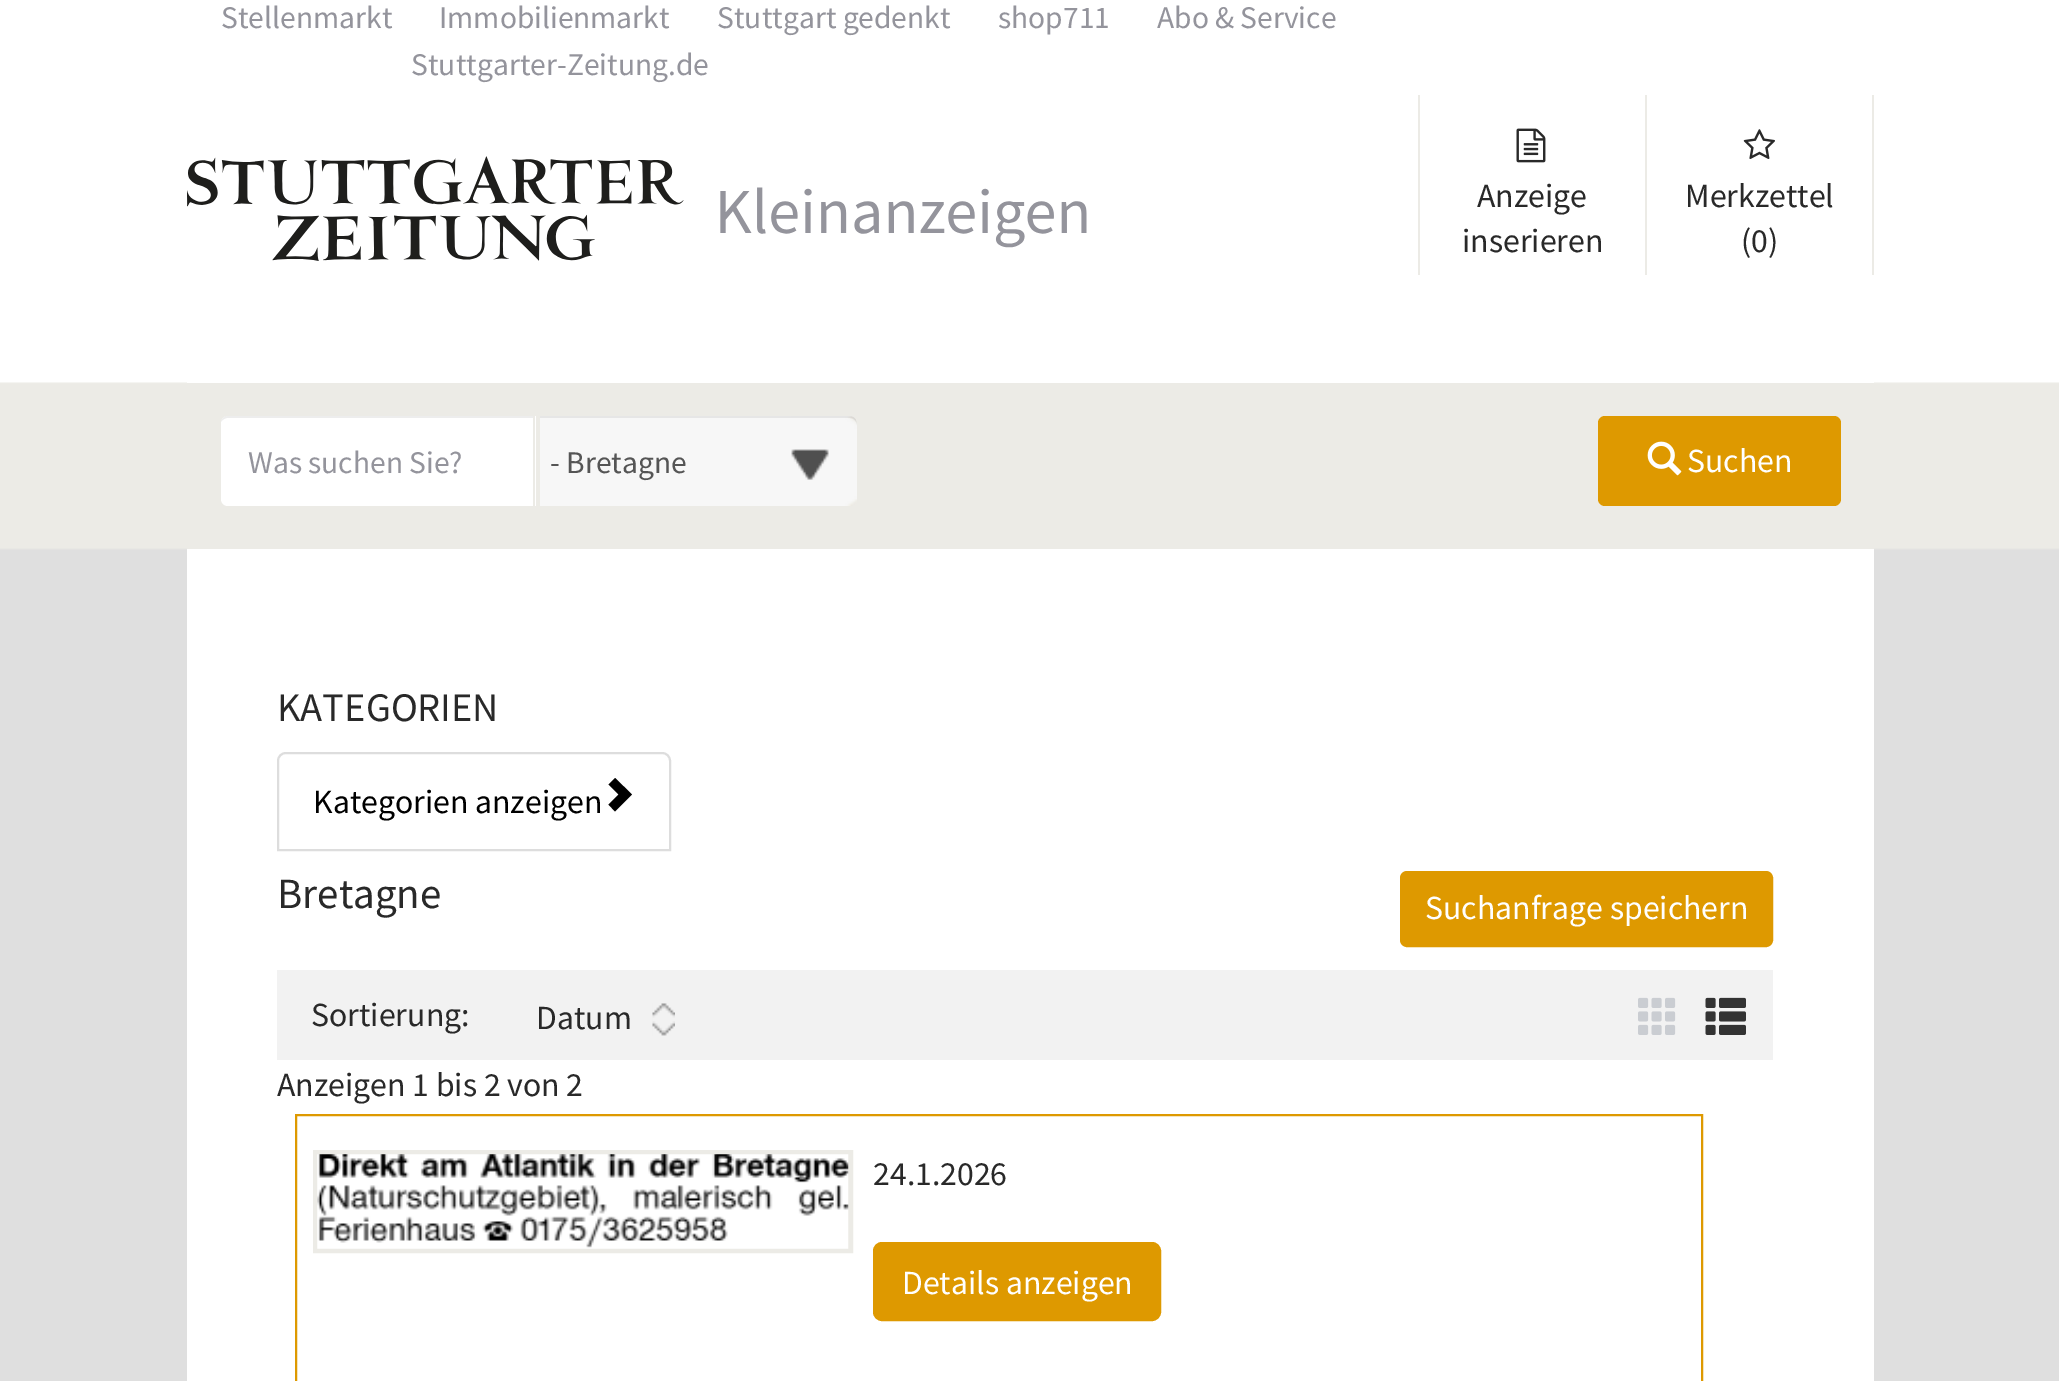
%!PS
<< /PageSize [2059 1381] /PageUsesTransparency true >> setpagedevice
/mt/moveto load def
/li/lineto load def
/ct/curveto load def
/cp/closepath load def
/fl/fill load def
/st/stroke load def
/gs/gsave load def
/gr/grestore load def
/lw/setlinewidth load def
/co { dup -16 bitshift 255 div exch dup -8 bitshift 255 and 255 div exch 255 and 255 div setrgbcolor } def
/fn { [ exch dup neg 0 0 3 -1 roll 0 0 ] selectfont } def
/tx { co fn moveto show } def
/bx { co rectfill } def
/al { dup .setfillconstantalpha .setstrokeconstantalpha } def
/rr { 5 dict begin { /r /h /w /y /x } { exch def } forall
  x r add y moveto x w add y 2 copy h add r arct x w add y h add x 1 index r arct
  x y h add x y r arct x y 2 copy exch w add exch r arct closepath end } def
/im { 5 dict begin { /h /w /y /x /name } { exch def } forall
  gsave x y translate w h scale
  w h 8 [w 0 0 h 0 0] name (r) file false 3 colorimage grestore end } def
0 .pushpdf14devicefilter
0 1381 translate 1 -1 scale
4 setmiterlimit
0 0 2059 1381 16#FFFFFF bx
(media/1.raw) 0 382 2059 999 im
187 382 1687 999 16#FFFFFF bx
(media/2.raw) 187 156 900 105 im
1418 95 2 180 16#ECEBE6 bx
(media/3.raw) 1516 128 30 35 im
1872 95 2 180 16#ECEBE6 bx
1645 95 2 180 16#ECEBE6 bx
(media/4.raw) 1743 129 32 30 im
187 383 1687 166 16#ECEBE6 bx
16#FFFFFF co
228 416 mt 536 416 li 536 506 li 228 506 li 224 506 221 503 221 499 ct 221 423 li 221 419 224 416 228 416 ct cp fl
0.07 al
16#000000 co
227 418 mt 533 418 li 533 416 li 228 416 li 224 416 222 419 221 422 ct 222 420 225 418 227 418 ct cp fl
1 al
533 416 2 90 16#ECEBE6 bx
16#F7F7F7 co
540 416 mt 850 416 li 854 416 857 419 857 423 ct 857 499 li 857 503 854 506 850 506 ct 540 506 li cp fl
(media/5.raw) 791 416 66 90 im
0.07 al
16#000000 co
540 418 mt 850 418 li 854 418 857 422 857 425 ct 857 421 855 416 850 416 ct 540 416 li cp fl
1 al
16#DE9900 co
1598 416 243 90 7 rr fl
(media/6.raw) 1647 441 35 35 im
16#DDDDDD co
2 lw
286 753 mt 662 753 li 666.5 753 670 756.5 670 761 ct 670 850 li 278 850 li 278 761 li 278 756.5 281.5 753 286 753 ct cp st
16#000000 co
608.5 804.5 mt 618.5 794.5 li 608.5 784.5 li 615 778 li 632 794.5 li 615 811.5 li cp fl
16#DE9900 co
1401 872 371 74 6 rr gs fl gr
st
277 970 1496 90 16#F2F2F2 bx
(media/7.raw) 652 1003 23 33 im
(media/8.raw) 1638 997 38 38 im
(media/9.raw) 1705 997 41 38 im
16#DE9900 co
296 1115 1406 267 rectstroke
16#ECEBE6 co
5 lw
315.5 1152.5 535 98 rectstroke
(media/10.raw) 317 1154 532 95 im
16#DE9900 co
874 1243 286 77 8 rr gs fl gr
2 lw
st
(Stellenmarkt) 221 28 /SourceSansPro-Regular 31.5 16#94949C tx
(Immobilienmarkt) 439 28 /SourceSansPro-Regular 31.5 16#94949C tx
(Stuttgart gedenkt) 717 28 /SourceSansPro-Regular 31.5 16#94949C tx
(shop711) 998 28 /SourceSansPro-Regular 31.5 16#94949C tx
(Abo & Service) 1157 28 /SourceSansPro-Regular 31.5 16#94949C tx
(Stuttgarter-Zeitung.de) 411 75 /SourceSansPro-Regular 31.5 16#94949C tx
(Anzeige) 1477 207 /SourceSansPro-Regular 33.75 16#292929 tx
(inserieren) 1462 252 /SourceSansPro-Regular 33.75 16#292929 tx
(Merkzettel) 1685 207 /SourceSansPro-Regular 33.75 16#292929 tx
(\(0\)) 1741 252 /SourceSansPro-Regular 33.75 16#292929 tx
(Was suchen Sie?) 248 473 /SourceSansPro-Regular 31.5 16#94949C tx
(- Bretagne) 550 473 /SourceSansPro-Regular 31.5 16#555555 tx
(Suchen) 1687 472 /SourceSansPro-Regular 33.75 16#FFFFFF tx
(KATEGORIEN) 277 721 /SourceSansPro-Regular 40.5 16#292929 tx
(Kategorien anzeigen) 313 813 /SourceSansPro-Regular 33.75 16#000000 tx
(Bretagne) 277 908 /SourceSansPro-Regular 43 16#292929 tx
(Suchanfrage speichern) 1425 919 /SourceSansPro-Regular 33.75 16#FFFFFF tx
(Sortierung:) 311 1026 /SourceSansPro-Regular 33.75 16#292929 tx
(Datum) 536 1029 /SourceSansPro-Regular 33.75 16#292929 tx
(Anzeigen 1 bis 2 von 2) 277 1096 /SourceSansPro-Regular 33.75 16#292929 tx
(24.1.2026) 873 1185 /SourceSansPro-Regular 33.75 16#292929 tx
(Details anzeigen) 902 1294 /SourceSansPro-Regular 33.75 16#FFFFFF tx
.poppdf14devicefilter showpage
